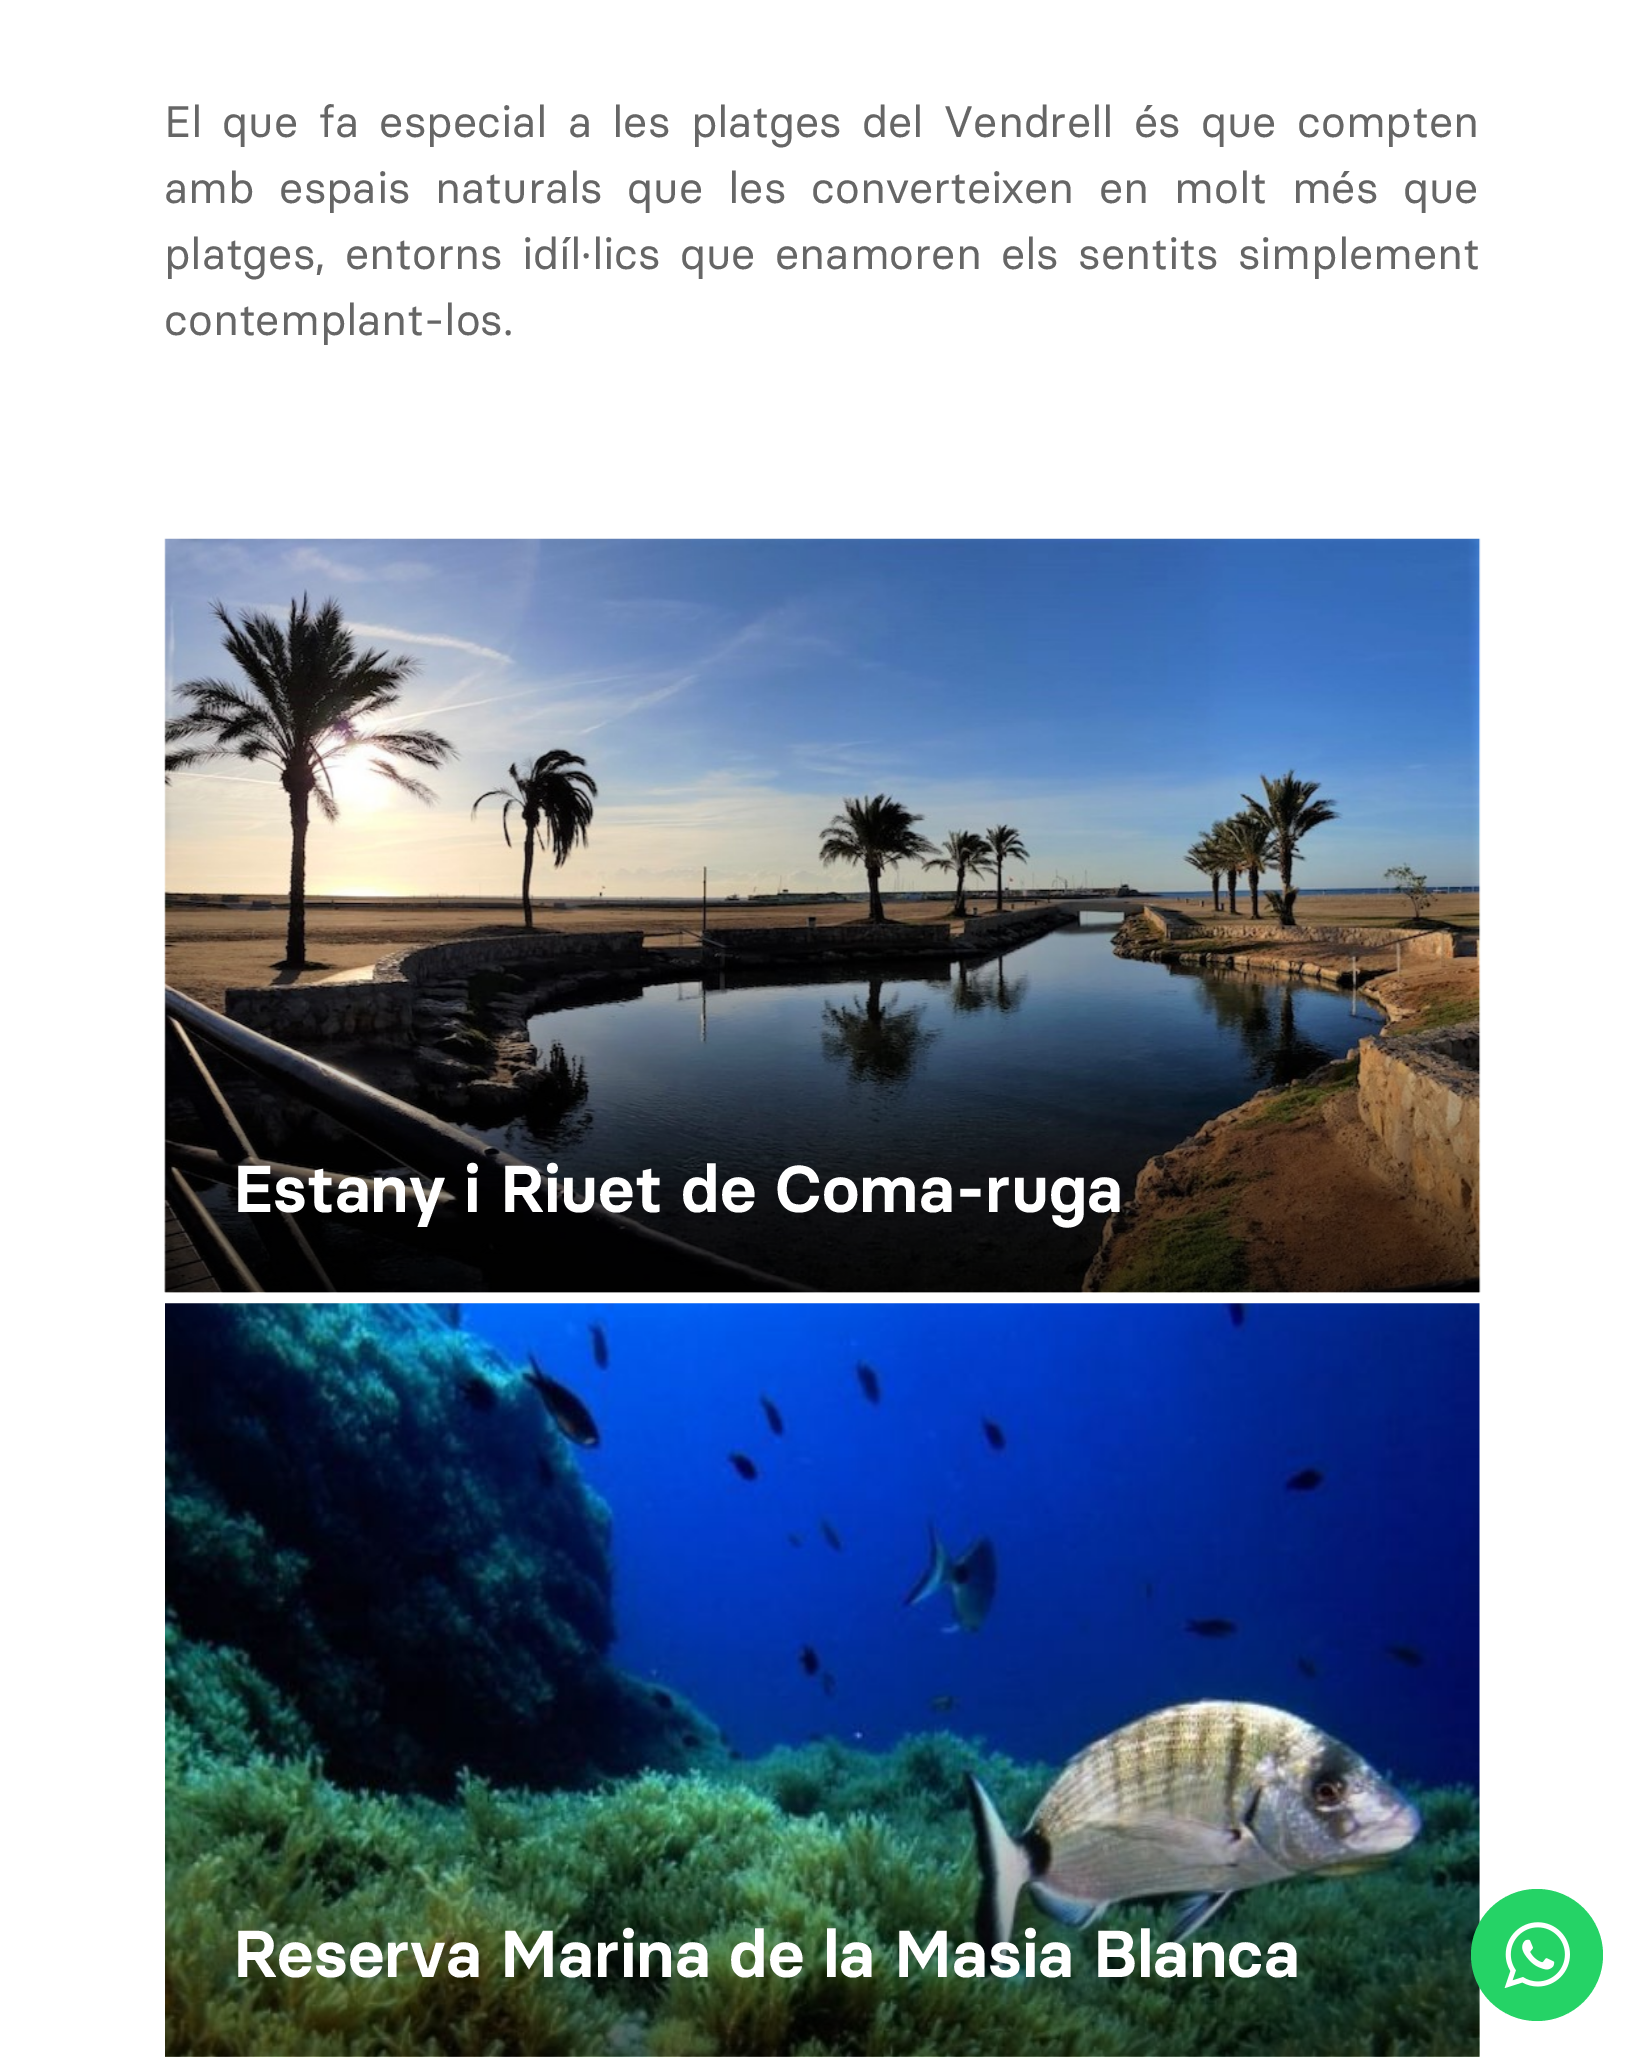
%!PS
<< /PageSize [1643 2062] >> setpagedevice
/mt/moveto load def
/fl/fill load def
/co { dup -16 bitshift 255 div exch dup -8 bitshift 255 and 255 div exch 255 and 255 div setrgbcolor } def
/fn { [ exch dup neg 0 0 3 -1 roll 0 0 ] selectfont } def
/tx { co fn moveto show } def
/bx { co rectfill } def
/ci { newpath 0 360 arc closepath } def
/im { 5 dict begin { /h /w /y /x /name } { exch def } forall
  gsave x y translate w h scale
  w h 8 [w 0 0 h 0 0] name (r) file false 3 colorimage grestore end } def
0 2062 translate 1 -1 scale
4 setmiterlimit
0 0 1643 2062 16#FFFFFF bx
(media/1.raw) 164 538 1317 755 im
(media/2.raw) 165 1303 1315 754 im
16#25D366 co
1537 1955 66 ci fl
(media/3.raw) 1504 1922 66 66 im
/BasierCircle-Regular 44 fn
16#666666 co
164 137 mt 7.25 0 32 (El que fa especial a les platges del Vendrell és que compten) widthshow
164 203 mt 11.75 0 32 (amb espais naturals que les converteixen en molt més que) widthshow
164 269 mt 6.25 0 32 (platges, entorns idíl·lics que enamoren els sentits simplement) widthshow
(contemplant-los.) 164 335 /BasierCircle-Regular 44 16#666666 tx
(Estany i Riuet de Coma-ruga) 233 1212 /BasierCircle-SemiBold 66 16#FFFFFF tx
(Reserva Marina de la Masia Blanca) 233 1977 /BasierCircle-SemiBold 66 16#FFFFFF tx
showpage
